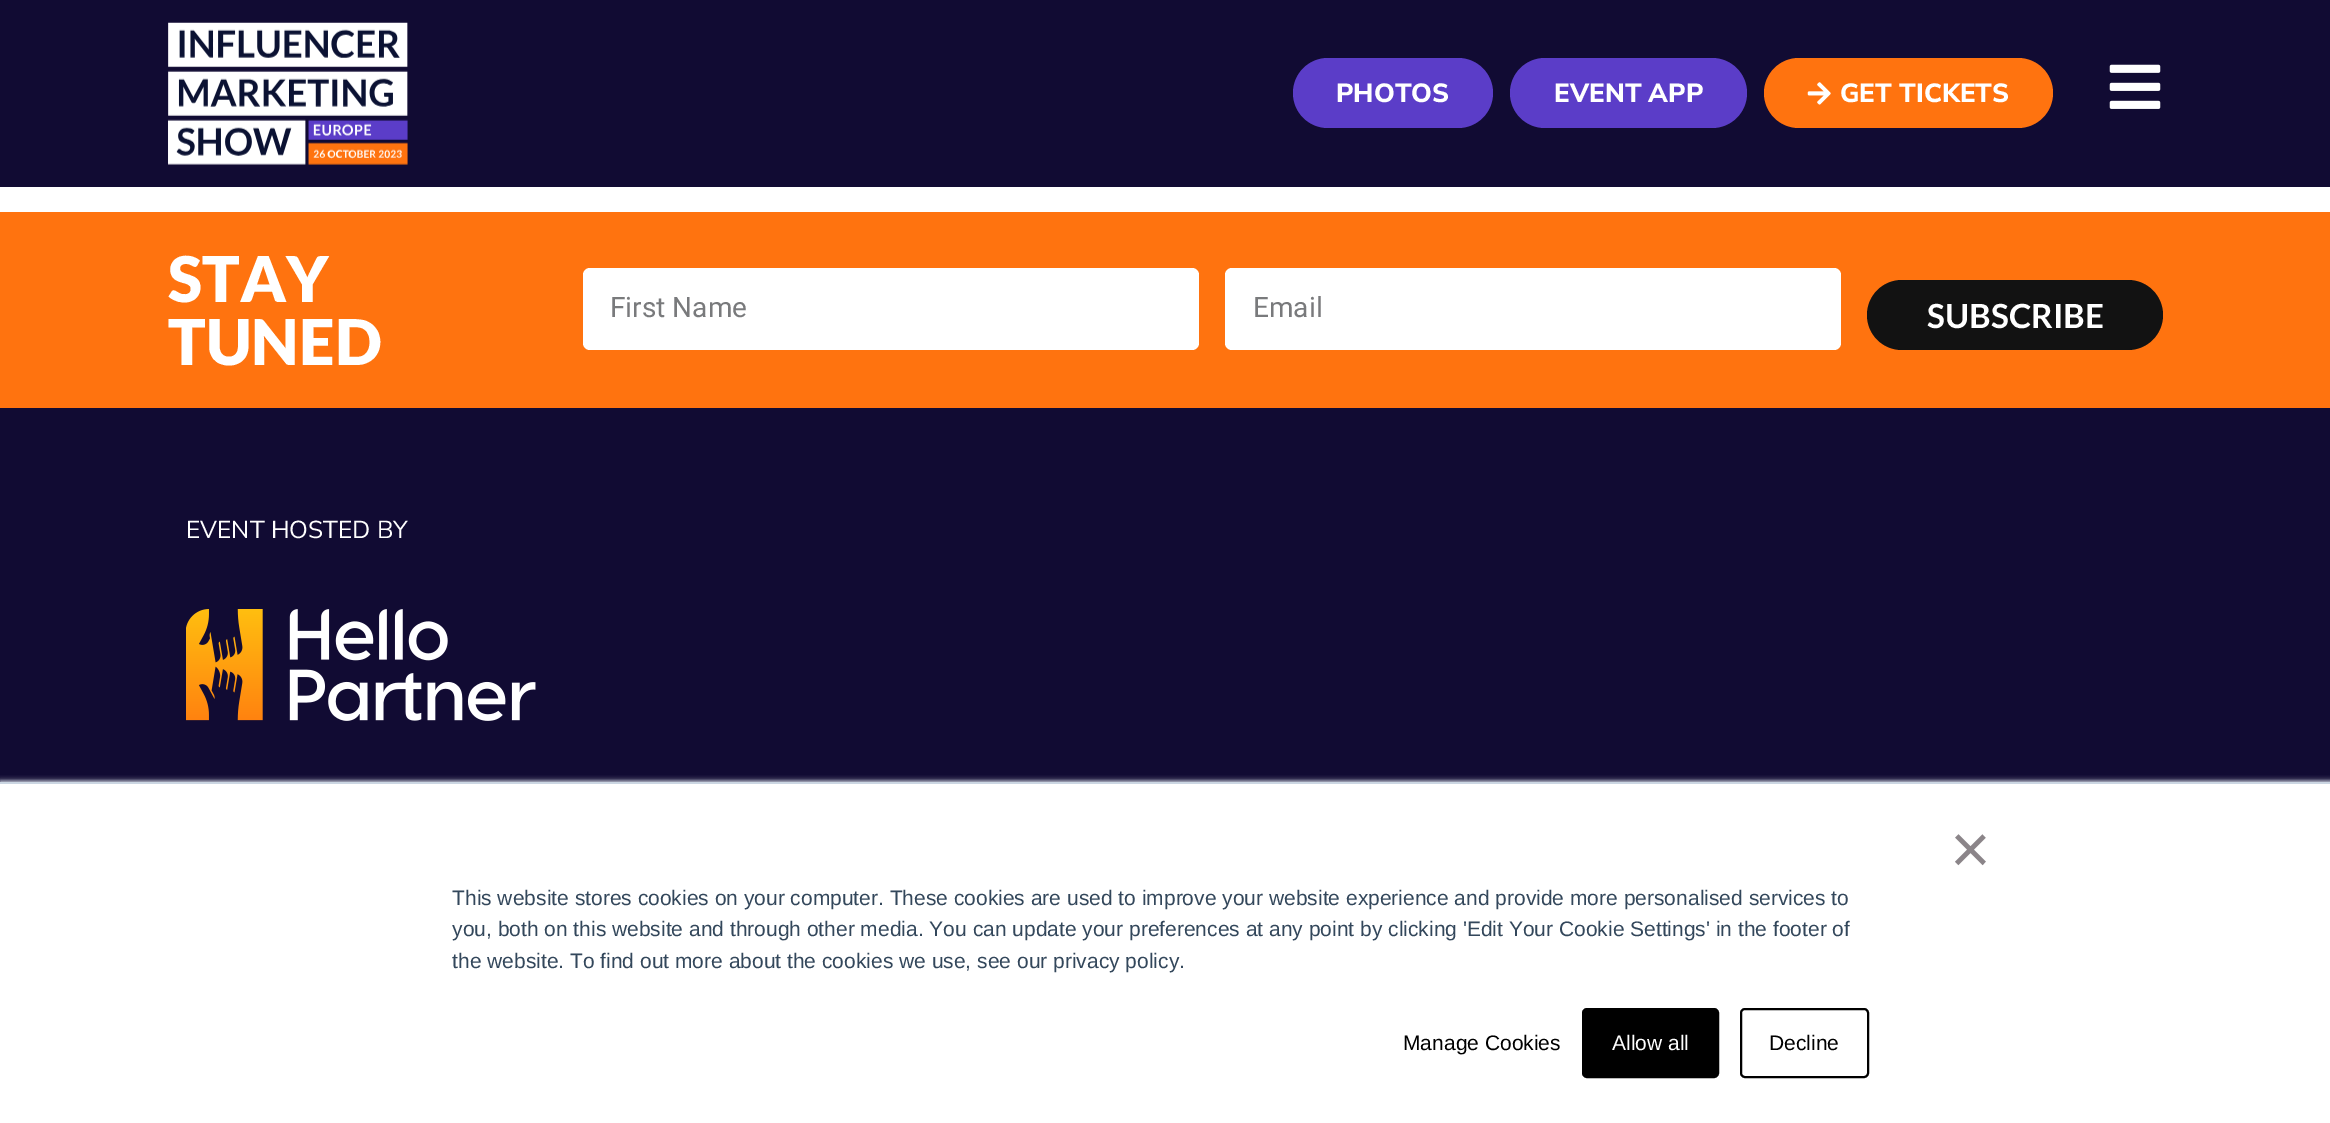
%!PS
<< /PageSize [2330 1123] /PageUsesTransparency true >> setpagedevice
/fl/fill load def
/st/stroke load def
/gs/gsave load def
/gr/grestore load def
/lw/setlinewidth load def
/co { dup -16 bitshift 255 div exch dup -8 bitshift 255 and 255 div exch 255 and 255 div setrgbcolor } def
/fn { [ exch dup neg 0 0 3 -1 roll 0 0 ] selectfont } def
/tx { co fn moveto show } def
/bx { co rectfill } def
/al { dup .setfillconstantalpha .setstrokeconstantalpha } def
/rr { 5 dict begin { /r /h /w /y /x } { exch def } forall
  x r add y moveto x w add y 2 copy h add r arct x w add y h add x 1 index r arct
  x y h add x y r arct x y 2 copy exch w add exch r arct closepath end } def
/sh { 12 dict begin { /a /b /q /h /w /y /x } { exch def } forall gsave /was 0 def
  9 -2 -9 { dup b mul 4 div /e exch def 1 sub .425 mul 2.718 exch exp 1 add a .99 .min exch div /now exch def
    1 1 now sub 1 was sub div sub al /was now def
    w h .min e 2 mul add 0 gt { x e sub y e sub w e 2 mul add h e 2 mul add
      q e add b .6 mul add w h .min 2 div e add .min 0 .max rr fill } if } for grestore end } def
/im { 5 dict begin { /h /w /y /x /name } { exch def } forall
  gsave x y translate w h scale
  w h 8 [w 0 0 h 0 0] name (r) file false 3 colorimage grestore end } def
0 .pushpdf14devicefilter
0 1123 translate 1 -1 scale
4 setmiterlimit
0 0 2330 1123 16#FFFFFF bx
0 0 2330 187 16#110B33 bx
(media/1.raw) 168 22 240 143 im
16#5B3DC8 co
1293 58 200 70 35 rr fl
1510 58 237 70 35 rr fl
16#FF730F co
1764 58 289 70 35 rr fl
(media/2.raw) 1807 82 24 23 im
(media/3.raw) 2109 64 52 45 im
0 212 2330 196 16#FF730F bx
16#FFFFFF co
583 268 616 82 7 rr fl
1225 268 616 82 7 rr fl
16#121212 co
1867 280 296 70 35 rr fl
0 408 2330 374 16#110B33 bx
(media/4.raw) 186 609 350 112 im
16#EAF0F6 co
0 781 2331 341 0 2.5 1 sh
0 784 2330 339 16#FFFFFF bx
0 782 2330 2 16#CBD6E2 bx
16#000000 co
1583 1009 135 68 4 rr gs fl gr
2 lw
st
1741 1009 127 68 4 rr st
(PHOTOS) 1336 102 /NunitoSans-ExtraBold 26.25 16#FFFFFF tx
(EVENT APP) 1554 102 /NunitoSans-ExtraBold 26.25 16#FFFFFF tx
(GET TICKETS) 1840 102 /NunitoSans-ExtraBold 26.25 16#FFFFFF tx
(STAY) 168 302 /Lato-Black 63 16#FFFFFF tx
(TUNED) 168 365 /Lato-Black 63 16#FFFFFF tx
(First Name) 610 317 /Roboto-Regular 28 16#797A7C tx
(Email) 1253 317 /Roboto-Regular 28 16#797A7C tx
(SUBSCRIBE) 1927 328 /Lato-Bold 33.25 16#FFFFFF tx
(EVENT HOSTED BY) 186 538 /NunitoSans-Regular 24.5 16#FFFFFF tx
(×) 1950 873 /LiberationSans-Regular 70 16#8B8589 tx
(This website stores cookies on your computer. These cookies are used to improve your website experience and provide more personalised services to) 452 905 /LiberationSans-Regular 21 16#33475B tx
(you, both on this website and through other media. You can update your preferences at any point by clicking 'Edit Your Cookie Settings' in the footer of) 452 936 /LiberationSans-Regular 21 16#33475B tx
(the website. To find out more about the cookies we use, see our privacy policy.) 452 968 /LiberationSans-Regular 21 16#33475B tx
(Manage Cookies) 1403 1050 /LiberationSans-Regular 21 16#000000 tx
(Allow all) 1612 1050 /LiberationSans-Regular 21 16#FFFFFF tx
(Decline) 1769 1050 /LiberationSans-Regular 21 16#000000 tx
.poppdf14devicefilter showpage
